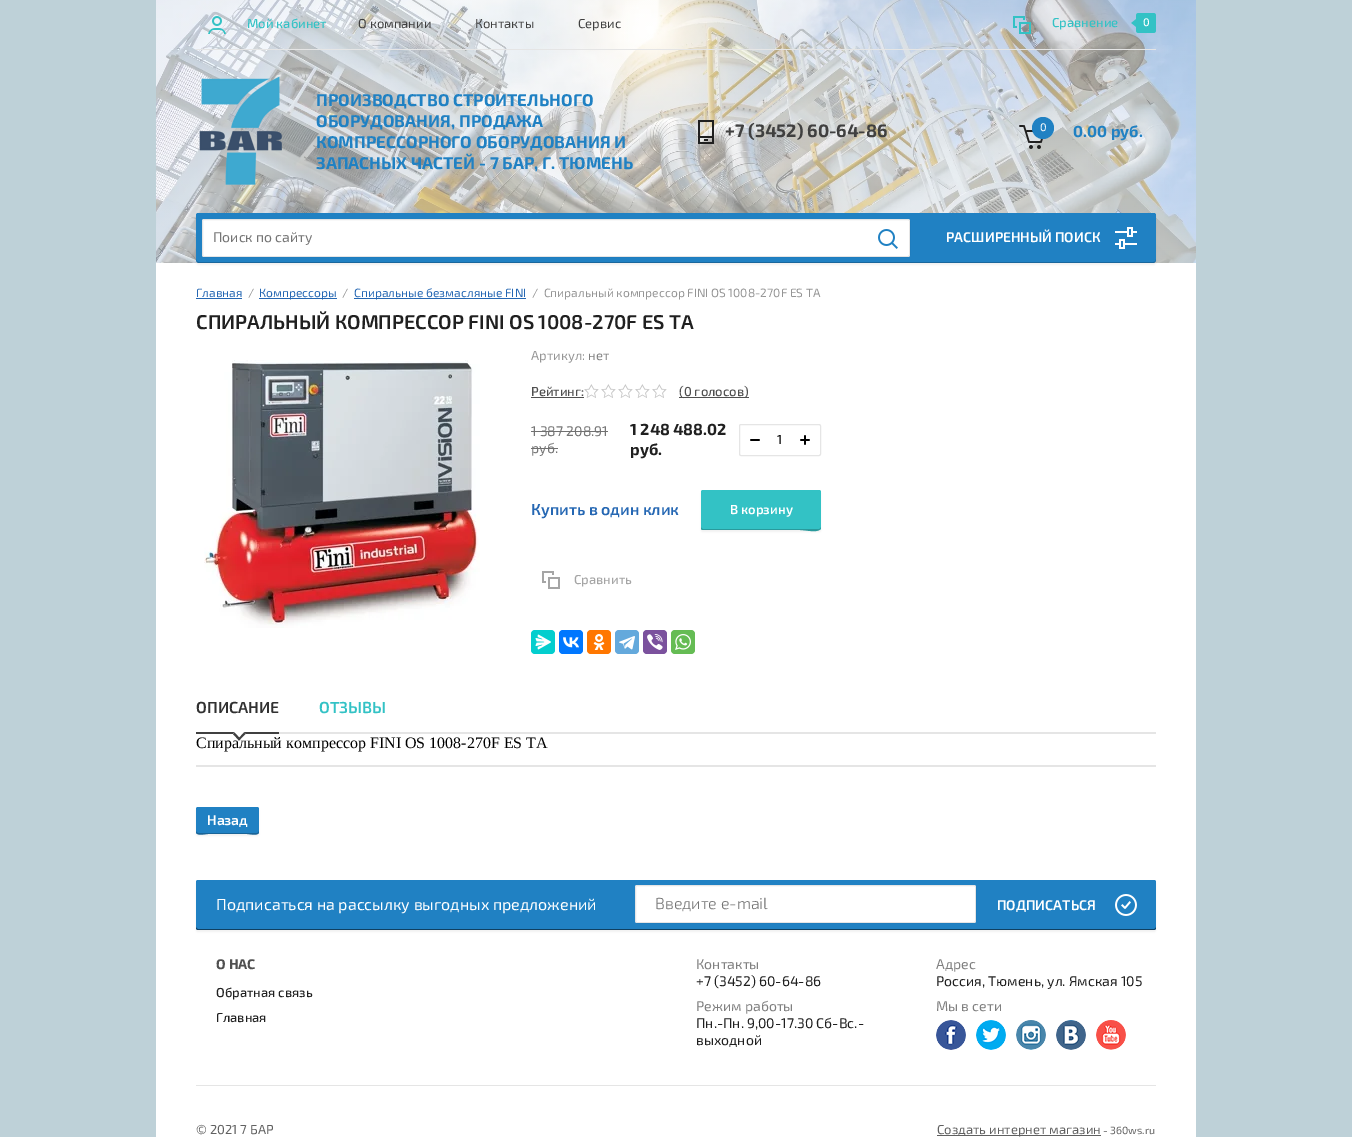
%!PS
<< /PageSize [1352 1137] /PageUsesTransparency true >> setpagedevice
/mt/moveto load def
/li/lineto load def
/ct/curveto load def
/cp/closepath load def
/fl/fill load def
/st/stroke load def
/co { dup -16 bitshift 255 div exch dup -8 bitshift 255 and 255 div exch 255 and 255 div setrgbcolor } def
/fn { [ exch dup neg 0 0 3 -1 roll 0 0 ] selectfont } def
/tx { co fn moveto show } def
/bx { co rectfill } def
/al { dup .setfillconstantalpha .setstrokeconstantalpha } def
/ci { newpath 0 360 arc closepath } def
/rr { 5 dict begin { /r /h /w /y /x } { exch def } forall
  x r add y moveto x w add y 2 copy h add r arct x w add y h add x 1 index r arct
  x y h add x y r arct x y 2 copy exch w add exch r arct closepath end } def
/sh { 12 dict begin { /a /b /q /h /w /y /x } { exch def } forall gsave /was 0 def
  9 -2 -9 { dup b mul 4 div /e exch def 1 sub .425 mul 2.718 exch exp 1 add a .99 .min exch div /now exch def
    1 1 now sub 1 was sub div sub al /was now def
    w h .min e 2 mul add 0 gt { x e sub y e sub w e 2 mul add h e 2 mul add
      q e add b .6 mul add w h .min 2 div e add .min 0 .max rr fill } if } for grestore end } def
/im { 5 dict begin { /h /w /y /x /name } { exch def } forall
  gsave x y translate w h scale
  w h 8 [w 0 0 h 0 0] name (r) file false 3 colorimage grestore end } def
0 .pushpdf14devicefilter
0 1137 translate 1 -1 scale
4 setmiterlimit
0 0 1352 1137 16#BED1D8 bx
156 263 1040 874 16#FFFFFF bx
(media/1.raw) 156 0 1040 263 im
196 49 960 1 16#E5E5E5 bx
(media/2.raw) 208 16 18 18 im
(media/3.raw) 1013 16 18 18 im
(media/4.raw) 1131 13 25 20 im
(media/5.raw) 199 76 83 109 im
(media/6.raw) 698 120 16 24 im
(media/7.raw) 1019 125 25 24 im
16#2081C3 co
1043 128 11 ci fl
16#000000 co
196 215 960 50 3 1 .05 sh
16#2081C3 co
198 213 mt 1154 213 li 1155 213 1156 214 1156 215 ct 1156 260 li 1156 261.5 1154.5 263 1153 263 ct 199 263 li 197.5 263 196 261.5 196 260 ct 196 215 li 196 214 197 213 198 213 ct cp fl
0.2 al
16#000000 co
196 259 mt 196 261 197 263 199 263 ct 1153 263 li 1155 263 1156 261 1156 259 ct 1156 261 1155 262 1153 262 ct 199 262 li 197 262 196 261 196 259 ct cp fl
1 al
16#FFFFFF co
202 219 708 38 2 rr fl
0.1 al
16#000000 co
202.5 219.5 707 37 1.5 rr st
1 al
(media/8.raw) 878 229 20 20 im
(media/9.raw) 1115 227 22 22 im
196 298 46 1 16#2567B3 bx
259 298 78 1 16#2567B3 bx
354 298 172 1 16#2567B3 bx
(media/10.raw) 204 360 276 268 im
531 397 53 1 16#505050 bx
(media/11.raw) 584 384 83 14 im
679 397 70 1 16#505050 bx
16#E5E5E5 co
739.5 424.5 81 31 1.5 rr st
(media/12.raw) 750 439 10 2 im
(media/13.raw) 800 435 10 10 im
16#000000 co
701 492 120 40 2 1 .05 sh
16#33C2C5 co
701 490 120 40 2 rr fl
16#299A9C co
701 527 mt 701 528 701 529 702 530 ct 800 530 li 806 530 821 534 821 527 ct 821 528 820 529 819 529 ct 703 529 li 701 528 li cp fl
(media/14.raw) 542 571 18 18 im
16#03CECE co
531 630 24 24 4 rr fl
(media/15.raw) 535 634 16 16 im
16#0077FF co
559 630 24 24 4 rr fl
(media/16.raw) 563 637 16 11 im
16#FF7700 co
587 630 24 24 4 rr fl
(media/17.raw) 593 634 12 16 im
16#64A9DC co
615 630 24 24 4 rr fl
(media/18.raw) 619 636 16 14 im
16#7B519D co
643 630 24 24 4 rr fl
(media/19.raw) 647 634 16 16 im
16#65BC54 co
671 630 24 24 4 rr fl
(media/20.raw) 675 634 16 16 im
279 732 877 2 16#E5E5E5 bx
196 732 83 2 16#404040 bx
196 765 960 2 16#E5E5E5 bx
16#000000 co
196 809 63 27 2 1 .05 sh
16#2081C3 co
196 807 63 27 2 rr fl
16#196497 co
196 831 mt 196 837 204 834 208 834 ct 247 834 li 251 834 259 837 259 831 ct 259 832 258 833 257 833 ct 198 833 li 197 833 196 832 196 831 ct cp fl
16#000000 co
196 882 960 50 2 1 .05 sh
16#2081C3 co
196 880 960 50 2 rr fl
0.5 al
16#000000 co
196 927 mt 196 928 li 196 929 197 930 198 930 ct 1154 930 li 1156 929 li 1156 927 li 1156 928 1155 929 1154 929 ct 198 929 li 197 929 196 928 196 927 ct cp fl
1 al
16#FFFFFF co
635 885 341 38 2 rr fl
0.1 al
16#000000 co
635.5 885.5 340 37 1.5 rr st
1 al
(media/21.raw) 1115 894 22 22 im
(media/22.raw) 936 1020 30 30 im
(media/23.raw) 976 1020 30 30 im
(media/24.raw) 1016 1020 30 30 im
(media/25.raw) 1056 1020 30 30 im
(media/26.raw) 1096 1020 30 30 im
196 1085 960 1 16#E5E5E5 bx
937 1135 164 1 16#606060 bx
(Мой кабинет) 247 28 /Exo2-Medium 13 16#33C2C5 tx
(О компании) 358 28 /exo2-Regular 13 16#404040 tx
(Контакты) 475 28 /exo2-Regular 13 16#404040 tx
(Сервис) 578 28 /exo2-Regular 13 16#404040 tx
(Сравнение) 1052 27 /Exo2-Medium 13 16#33C2C5 tx
(0) 1143 26 /Exo2-Medium 11 16#FFFFFF tx
(ПРОИЗВОДСТВО СТРОИТЕЛЬНОГО) 316 106 /exo2-Bold 17 16#2081C3 tx
(ОБОРУДОВАНИЯ, ПРОДАЖА) 316 127 /exo2-Bold 17 16#2081C3 tx
(КОМПРЕССОРНОГО ОБОРУДОВАНИЯ И) 316 148 /exo2-Bold 17 16#2081C3 tx
(ЗАПАСНЫХ ЧАСТЕЙ - 7 БАР, Г. ТЮМЕНЬ) 316 169 /exo2-Bold 17 16#2081C3 tx
(+7 \(3452\) 60-64-86) 725 137 /exo2-Bold 18 16#404040 tx
(0) 1040 131 /exo2-Regular 11 16#FFFFFF tx
(0.00 руб.) 1073 137 /exo2-Bold 16 16#2081C3 tx
(Поиск по сайту) 213 242 /exo2-Regular 14 16#757575 tx
(РАСШИРЕННЫЙ ПОИСК) 946 242 /Exo2-SemiBold 14 16#FFFFFF tx
(Главная) 196 297 /exo2-Regular 12 16#2567B3 tx
(/) 248 297 /exo2-Regular 12 16#959595 tx
(Компрессоры) 259 297 /exo2-Regular 12 16#2567B3 tx
(/) 342 297 /exo2-Regular 12 16#959595 tx
(Спиральные безмасляные FINI) 354 297 /exo2-Regular 12 16#2567B3 tx
(/  Спиральный компрессор FINI OS 1008-270F ES TA) 532 297 /exo2-Regular 12 16#959595 tx
(СПИРАЛЬНЫЙ КОМПРЕССОР FINI OS 1008-270F ES TA) 196 329 /Exo2-SemiBold 20 16#202020 tx
(Артикул:) 531 360 /exo2-Regular 13 16#959595 tx
(нет) 588 360 /exo2-Regular 13 16#808080 tx
(Рейтинг:) 531 396 /Exo2-Medium 13 16#505050 tx
(\(0 голосов\)) 679 396 /Exo2-Medium 13 16#505050 tx
(1 387 208.91) 531 436 /exo2-Regular 14 16#757575 tx
531 431 77 1 16#707070 bx
(руб.) 531 453 /exo2-Regular 14 16#757575 tx
531 448 27 1 16#707070 bx
(1 248 488.02) 630 435 /exo2-Bold 16 16#202020 tx
(руб.) 630 455 /exo2-Bold 16 16#202020 tx
(1) 777 444 /Exo2-Medium 13 16#000000 tx
(Купить в один клик) 531 515 /Exo2-SemiBold 16 16#2567B3 tx
(В корзину) 730 514 /Exo2-SemiBold 13 16#FFFFFF tx
(Сравнить) 574 584 /Exo2-Medium 13 16#A5A5A5 tx
(ОПИСАНИЕ) 196 713 /Exo2-SemiBold 16 16#313131 tx
(ОТЗЫВЫ) 319 713 /Exo2-SemiBold 16 16#33C2C5 tx
(Спиральный компрессор FINI OS 1008-270F ES TA) 196 748 /LiberationSerif-Regular 16 16#000000 tx
16#FFFFFF co
239 740.5 mt 233 734 li 239 727.5 li 245.5 734 li cp fl
16#404040 co
239 740.5 mt 233 734 li 234.5 732.5 li 240.5 739 li cp fl
239 740.5 mt 238 739 li 244 732.5 li 245.5 734 li cp fl
(Назад) 207 825 /Exo2-SemiBold 14 16#FFFFFF tx
(Подписаться на рассылку выгодных предложений) 216 910 /exo2-Regular 16 16#FFFFFF tx
(Введите e-mail) 655 909 /Exo2-Light 16 16#757575 tx
(ПОДПИСАТЬСЯ) 997 910 /Exo2-SemiBold 14 16#FFFFFF tx
(О НАС) 216 969 /exo2-Bold 14 16#505050 tx
(Обратная связь) 216 997 /Exo2-Medium 13 16#202020 tx
(Главная) 216 1022 /Exo2-Medium 13 16#202020 tx
(Контакты) 696 969 /exo2-Regular 14 16#808080 tx
(+7 \(3452\) 60-64-86) 696 986 /exo2-Regular 14 16#202020 tx
(Режим работы) 696 1011 /exo2-Regular 14 16#808080 tx
(Пн.-Пн. 9,00-17.30 Сб-Вс.-) 696 1028 /exo2-Regular 14 16#202020 tx
(выходной) 696 1045 /exo2-Regular 14 16#202020 tx
(Адрес) 936 969 /exo2-Regular 14 16#808080 tx
(Россия, Тюмень, ул. Ямская 105) 936 986 /exo2-Regular 14 16#202020 tx
(Мы в сети) 936 1011 /exo2-Regular 14 16#808080 tx
(© 2021 7 БАР) 196 1134 /exo2-Regular 13 16#606060 tx
(Создать интернет магазин) 937 1134 /exo2-Regular 13 16#606060 tx
(- 360ws.ru) 1103 1134 /exo2-Regular 10.5 16#606060 tx
.poppdf14devicefilter showpage
